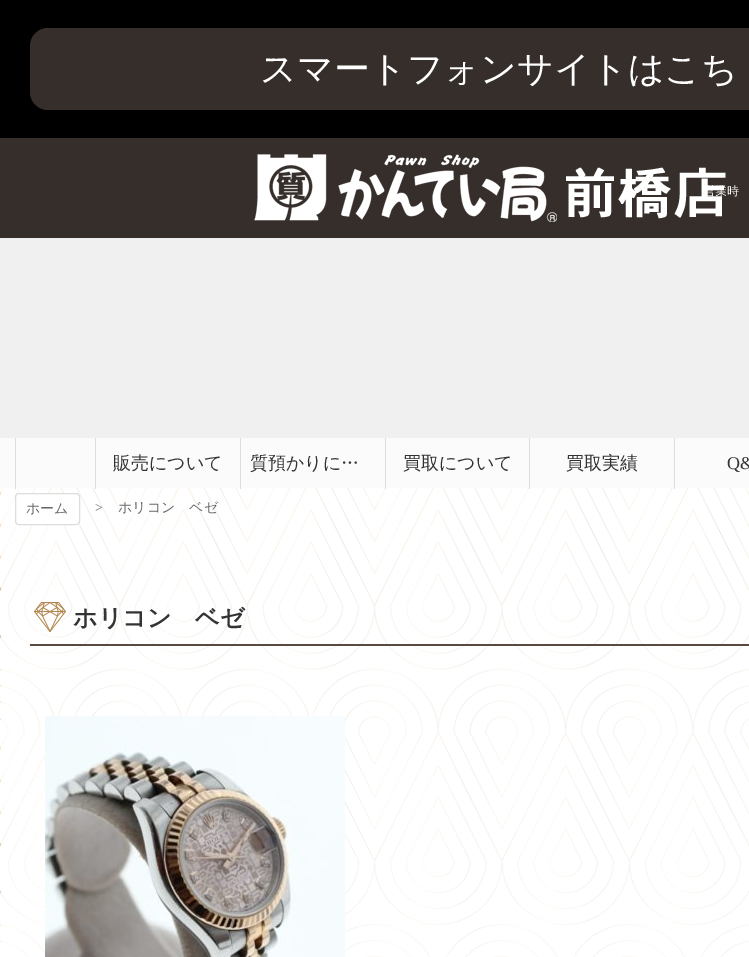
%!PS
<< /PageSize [749 957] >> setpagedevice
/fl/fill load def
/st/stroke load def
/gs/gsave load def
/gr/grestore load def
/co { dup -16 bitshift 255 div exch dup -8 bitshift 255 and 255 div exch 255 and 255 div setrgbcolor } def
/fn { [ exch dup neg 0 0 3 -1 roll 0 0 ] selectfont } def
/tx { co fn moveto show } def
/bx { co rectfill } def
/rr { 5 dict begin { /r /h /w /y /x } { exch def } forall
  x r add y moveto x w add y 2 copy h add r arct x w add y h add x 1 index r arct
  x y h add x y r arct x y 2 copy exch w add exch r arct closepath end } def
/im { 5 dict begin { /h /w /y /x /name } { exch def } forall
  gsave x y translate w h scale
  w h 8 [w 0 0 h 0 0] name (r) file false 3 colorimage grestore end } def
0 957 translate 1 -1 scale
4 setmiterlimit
0 0 749 957 16#FFFFFF bx
(media/1.raw) 0 488 749 469 im
0 0 749 138 16#000000 bx
16#362E2B co
30 28 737 82 18 rr fl
0 138 749 100 16#362E2B bx
(media/2.raw) 254 154 472 68 im
0 238 749 200 16#F0F0F0 bx
0 438 749 50 16#FBFBFB bx
15 438 1 51 16#DDDDDD bx
95 438 1 51 16#DDDDDD bx
240 438 1 51 16#DDDDDD bx
385 438 1 51 16#DDDDDD bx
529 438 1 51 16#DDDDDD bx
674 438 1 51 16#DDDDDD bx
16#FFFFFF co
15.5 493.5 64 31 3.5 rr gs fl gr
16#DDDDDD co
st
30 644 719 2 16#59493F bx
(media/3.raw) 34 602 32 30 im
(media/4.raw) 45 716 300 241 im
(スマートフォンサイトはこち) 260 81 /WenQuanYiZenHei-Medium 36 16#FFFFFF tx
(時) 727 195 /WenQuanYiZenHei-Medium 12 16#FFFFFF tx
(販売について) 113 469 /WenQuanYiZenHei-Medium 18 16#333333 tx
(質預かりに…) 250 469 /WenQuanYiZenHei-Medium 18 16#333333 tx
(買取について) 403 469 /WenQuanYiZenHei-Medium 18 16#333333 tx
(買取実績) 566 469 /WenQuanYiZenHei-Medium 18 16#333333 tx
(Q&) 727 469 /LiberationSerif-Regular 18 16#333333 tx
(ホーム) 26 513 /WenQuanYiZenHei-Medium 14 16#666666 tx
(>) 95 512 /LiberationSerif-Regular 14 16#666666 tx
(ホリコン　ベゼ) 118 512 /WenQuanYiZenHei-Medium 14 16#666666 tx
(ホリコン　ベゼ) 73 626 /WenQuanYiZenHei-Bold 24 16#333333 tx
showpage
